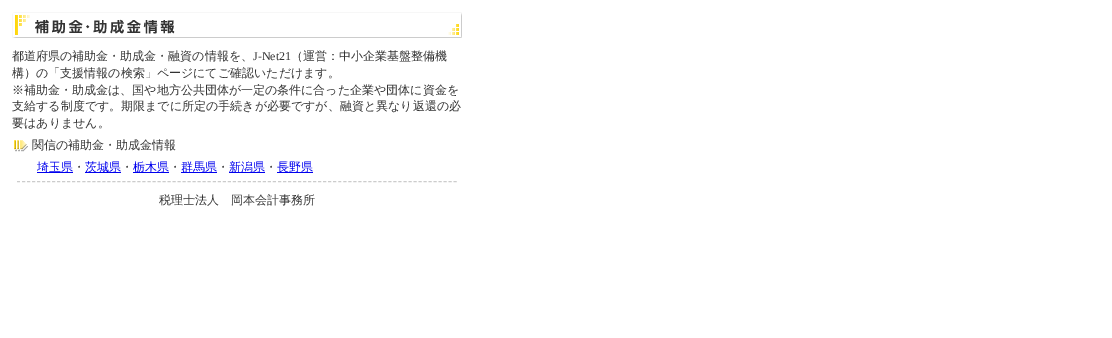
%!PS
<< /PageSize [1112 338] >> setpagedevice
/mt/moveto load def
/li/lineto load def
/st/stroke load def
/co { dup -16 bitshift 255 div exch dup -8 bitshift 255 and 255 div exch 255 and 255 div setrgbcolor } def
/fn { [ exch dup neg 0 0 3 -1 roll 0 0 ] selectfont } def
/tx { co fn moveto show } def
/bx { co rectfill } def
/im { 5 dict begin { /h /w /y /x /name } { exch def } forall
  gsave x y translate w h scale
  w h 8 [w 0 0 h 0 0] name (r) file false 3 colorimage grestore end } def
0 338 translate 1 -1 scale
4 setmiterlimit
0 0 1112 338 16#FFFFFF bx
(media/1.raw) 12 12 450 26 im
(media/2.raw) 14 140 14 12 im
16#CCCCCC co
[3 2.02] 0 setdash
17 181.5 mt 457 181.5 li st
37 172 36 1 16#0000EE bx
85 172 36 1 16#0000EE bx
133 172 36 1 16#0000EE bx
181 172 36 1 16#0000EE bx
229 172 36 1 16#0000EE bx
277 172 36 1 16#0000EE bx
(都道府県の補助金・助成金・融資の情報を、) 12 60 /WenQuanYiZenHei-Medium 12 16#333333 tx
(J-Net21) 253 60 /LiberationSerif-Regular 12 16#333333 tx
(（運営：中小企業基盤整備機) 291 60 /WenQuanYiZenHei-Medium 12 16#333333 tx
(構）の「支援情報の検索」ページにてご確認いただけます。) 12 77 /WenQuanYiZenHei-Medium 12 16#333333 tx
(※補助金・助成金は、国や地方公共団体が一定の条件に合った企業や団体に資金を) 12 94 /WenQuanYiZenHei-Medium 12 16#333333 tx
(支給する制度です。期限までに所定の手続きが必要ですが、融資と異なり返還の必) 12 110 /WenQuanYiZenHei-Medium 12 16#333333 tx
(要はありません。) 12 127 /WenQuanYiZenHei-Medium 12 16#333333 tx
(関信の補助金・助成金情報) 32 149 /WenQuanYiZenHei-Medium 12 16#333333 tx
(埼玉県) 37 171 /WenQuanYiZenHei-Medium 12 16#0000EE tx
(・) 73 171 /WenQuanYiZenHei-Medium 12 16#333333 tx
(茨城県) 85 171 /WenQuanYiZenHei-Medium 12 16#0000EE tx
(・) 121 171 /WenQuanYiZenHei-Medium 12 16#333333 tx
(栃木県) 133 171 /WenQuanYiZenHei-Medium 12 16#0000EE tx
(・) 169 171 /WenQuanYiZenHei-Medium 12 16#333333 tx
(群馬県) 181 171 /WenQuanYiZenHei-Medium 12 16#0000EE tx
(・) 217 171 /WenQuanYiZenHei-Medium 12 16#333333 tx
(新潟県) 229 171 /WenQuanYiZenHei-Medium 12 16#0000EE tx
(・) 265 171 /WenQuanYiZenHei-Medium 12 16#333333 tx
(長野県) 277 171 /WenQuanYiZenHei-Medium 12 16#0000EE tx
(税理士法人　岡本会計事務所) 159 204 /WenQuanYiZenHei-Medium 12 16#333333 tx
showpage
